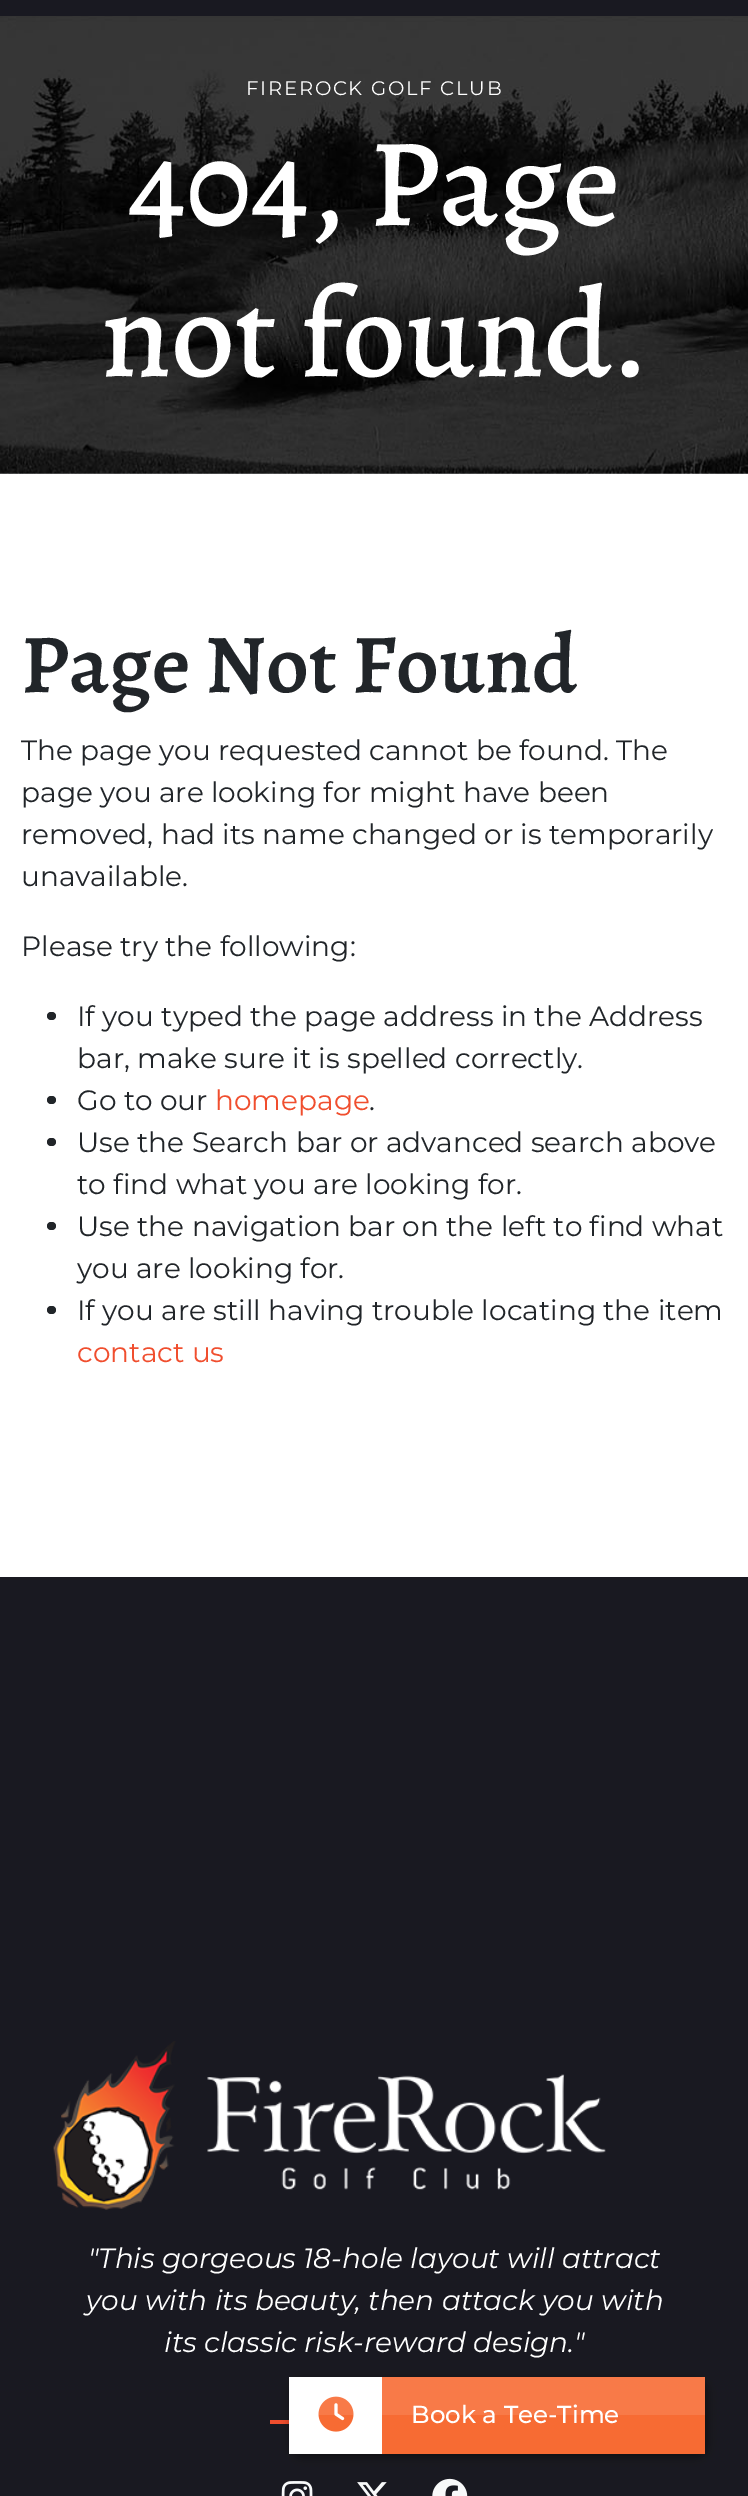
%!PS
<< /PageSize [748 2496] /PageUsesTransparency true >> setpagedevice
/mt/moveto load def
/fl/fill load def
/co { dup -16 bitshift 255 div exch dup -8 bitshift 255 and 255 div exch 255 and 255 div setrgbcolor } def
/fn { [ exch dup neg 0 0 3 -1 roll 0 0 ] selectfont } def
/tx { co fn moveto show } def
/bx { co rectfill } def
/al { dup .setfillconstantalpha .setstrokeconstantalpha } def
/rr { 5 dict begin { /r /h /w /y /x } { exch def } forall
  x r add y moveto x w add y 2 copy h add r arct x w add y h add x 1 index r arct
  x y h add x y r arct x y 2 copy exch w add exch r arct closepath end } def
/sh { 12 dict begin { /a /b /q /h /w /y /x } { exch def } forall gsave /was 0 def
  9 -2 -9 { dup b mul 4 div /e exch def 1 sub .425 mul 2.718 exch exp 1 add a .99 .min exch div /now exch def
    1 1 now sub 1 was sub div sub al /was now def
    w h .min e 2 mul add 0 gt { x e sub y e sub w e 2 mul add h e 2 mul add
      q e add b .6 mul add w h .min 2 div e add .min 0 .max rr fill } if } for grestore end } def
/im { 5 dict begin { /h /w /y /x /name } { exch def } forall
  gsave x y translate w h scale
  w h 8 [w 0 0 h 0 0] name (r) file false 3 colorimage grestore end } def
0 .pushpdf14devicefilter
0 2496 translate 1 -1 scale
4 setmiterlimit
0 0 748 2496 16#FFFFFF bx
0 0 748 16 16#191921 bx
(media/1.raw) 0 16 748 458 im
0 1577 748 919 16#191921 bx
270 2420 19 4 16#F04E2E bx
16#000000 co
291 2380 416 77 11 4.5 .45 sh
289 2377 93 77 16#FFFFFF bx
(media/2.raw) 318 2396 36 36 im
382 2377 323 77 16#F76B33 bx
0.1 al
318 2377 387 38 16#FFFFFF bx
1 al
16#212529 co
47 1012 9 8 4 rr fl
47 1096 9 8 4 rr fl
47 1138 9 8 4 rr fl
47 1222 9 8 4 rr fl
47 1306 9 8 4 rr fl
(media/3.raw) 53 2041 553 169 im
(media/4.raw) 281 2481 32 15 im
(media/5.raw) 357 2482 30 14 im
(media/6.raw) 432 2478 36 18 im
/Montserrat-Regular 19.6 fn
16#FFFFFF co
246 95 mt 1.75 0 (FIREROCK GOLF CLUB) ashow
(404, Page) 128 225 /Alegreya-Medium 126 16#FFFFFF tx
(not found.) 101 376 /Alegreya-Medium 126 16#FFFFFF tx
(Book a Tee-Time) 411 2423 /Montserrat-Medium 24.5 16#FFFFFF tx
(Page Not Found) 21 692 /Alegreya-SemiBold 84 16#212529 tx
(The page you requested cannot be found. The) 21 760 /Montserrat-Regular 28 16#212529 tx
(page you are looking for might have been) 21 802 /Montserrat-Regular 28 16#212529 tx
(removed, had its name changed or is temporarily) 21 844 /Montserrat-Regular 28 16#212529 tx
(unavailable.) 21 886 /Montserrat-Regular 28 16#212529 tx
(Please try the following:) 21 956 /Montserrat-Regular 28 16#212529 tx
(If you typed the page address in the Address) 77 1026 /Montserrat-Regular 28 16#212529 tx
(bar, make sure it is spelled correctly.) 77 1068 /Montserrat-Regular 28 16#212529 tx
(Go to our) 77 1110 /Montserrat-Regular 28 16#212529 tx
(homepage) 215 1110 /Montserrat-Regular 28 16#F04E2E tx
(.) 369 1110 /Montserrat-Regular 28 16#212529 tx
(Use the Search bar or advanced search above) 77 1152 /Montserrat-Regular 28 16#212529 tx
(to find what you are looking for.) 77 1194 /Montserrat-Regular 28 16#212529 tx
(Use the navigation bar on the left to find what) 77 1236 /Montserrat-Regular 28 16#212529 tx
(you are looking for.) 77 1278 /Montserrat-Regular 28 16#212529 tx
(If you are still having trouble locating the item) 77 1320 /Montserrat-Regular 28 16#212529 tx
(contact us) 77 1362 /Montserrat-Regular 28 16#F04E2E tx
("This gorgeous 18-hole layout will attract) 88 2268 /Montserrat-Italic 28 16#FFFFFF tx
(you with its beauty, then attack you with) 86 2310 /Montserrat-Italic 28 16#FFFFFF tx
(its classic risk-reward design.") 164 2352 /Montserrat-Italic 28 16#FFFFFF tx
.poppdf14devicefilter showpage
